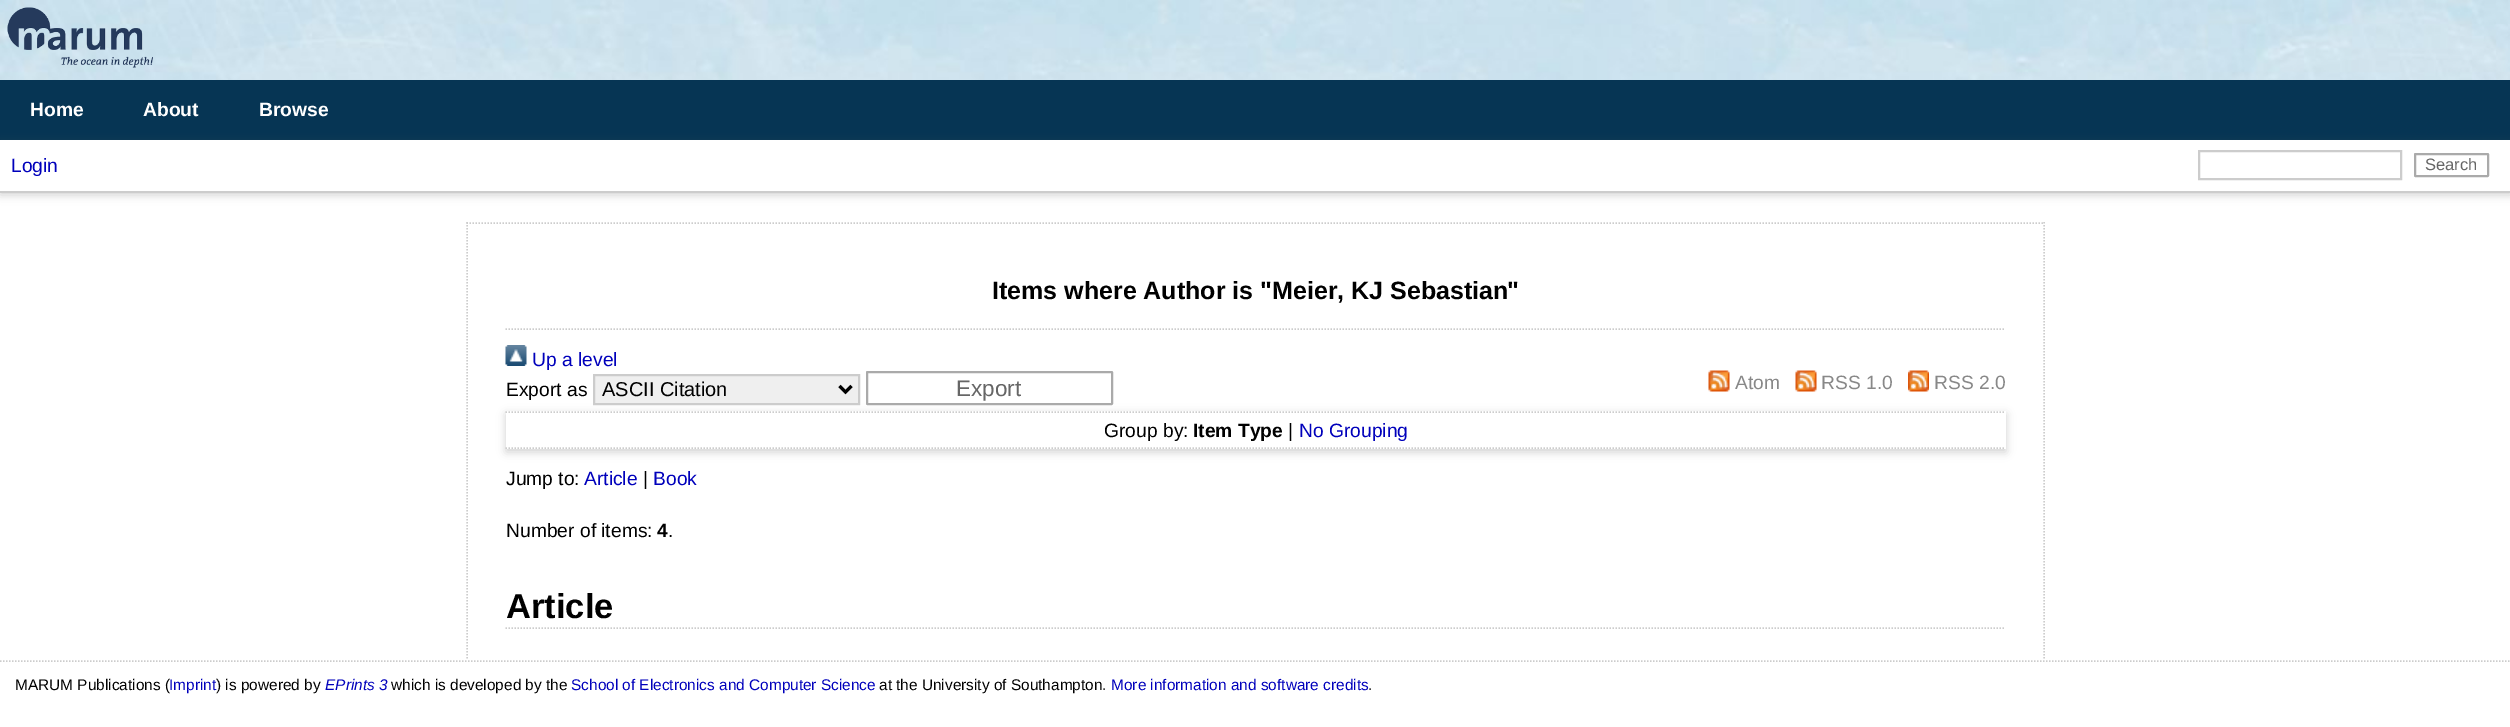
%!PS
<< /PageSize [2510 727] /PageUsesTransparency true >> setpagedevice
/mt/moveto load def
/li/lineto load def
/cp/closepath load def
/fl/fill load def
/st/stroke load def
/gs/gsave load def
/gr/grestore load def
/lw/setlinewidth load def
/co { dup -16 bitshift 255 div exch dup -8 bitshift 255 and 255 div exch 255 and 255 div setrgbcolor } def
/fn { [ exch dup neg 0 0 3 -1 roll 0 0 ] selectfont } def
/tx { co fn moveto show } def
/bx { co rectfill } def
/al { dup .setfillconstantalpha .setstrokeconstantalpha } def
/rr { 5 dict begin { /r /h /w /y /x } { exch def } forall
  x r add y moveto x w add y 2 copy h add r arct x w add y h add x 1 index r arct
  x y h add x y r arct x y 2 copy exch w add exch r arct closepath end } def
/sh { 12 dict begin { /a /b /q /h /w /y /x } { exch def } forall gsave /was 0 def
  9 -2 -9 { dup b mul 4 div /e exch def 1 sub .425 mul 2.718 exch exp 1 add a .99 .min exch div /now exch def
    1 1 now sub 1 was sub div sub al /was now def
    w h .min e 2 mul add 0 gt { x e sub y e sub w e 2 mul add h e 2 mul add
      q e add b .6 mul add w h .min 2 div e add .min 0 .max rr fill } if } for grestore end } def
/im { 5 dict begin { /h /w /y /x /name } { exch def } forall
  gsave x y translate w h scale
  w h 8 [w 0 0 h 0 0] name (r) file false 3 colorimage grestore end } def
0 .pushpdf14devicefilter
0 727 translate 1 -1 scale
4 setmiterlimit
0 0 2510 727 16#FFFFFF bx
(media/1.raw) 0 0 2510 80 im
(media/2.raw) 7 7 146 61 im
0 80 2510 60 16#063554 bx
16#646464 co
0 143 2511 52 0 4.5 .3 sh
0 140 2510 51 16#FFFFFF bx
0 191 2510 2 16#CCCCCC bx
2 lw
2199 151 202 28 rectstroke
16#AAAAAA co
2415 154 73 22 .5 rr st
16#CCCCCC co
1.5 lw
[1.5 1.5] 0 setdash
466.5 223 mt 2044.5 223 li st
2044 222 mt 2044 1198.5 li st
467 222 mt 467 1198.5 li st
505.5 329 mt 2005.5 329 li st
(media/3.raw) 505 345 22 21 im
16#646464 co
506 414 1500 38 0 4.5 .3 sh
16#EFEFEF co
594 375 mt 859 375 li 859 404 li 594 404 li cp gs fl gr
16#CCCCCC co
2 lw
[] 0 setdash
st
16#000000 co
3 lw
839.5 386 mt 845.5 392 li 851.5 386 li st
16#AAAAAA co
2 lw
867 372 245 32 .5 rr st
(media/4.raw) 1708 370 22 22 im
(media/4.raw) 1795 370 22 22 im
(media/5.raw) 1908 370 21 22 im
506 411 1500 38 16#FFFFFF bx
16#CCCCCC co
1.5 lw
[1.5 1.5] 0 setdash
505.5 412 mt 2005.5 412 li st
505.5 448 mt 2005.5 448 li st
505.5 628 mt 2005.5 628 li st
466 660 1579 67 16#FFFFFF bx
16#CCCCCC co
0 661 mt 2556 661 li st
(Home) 30 116 /LiberationSans-Bold 19.25 16#FFFFFF tx
(About) 143 116 /LiberationSans-Bold 19.25 16#FFFFFF tx
(Browse) 259 116 /LiberationSans-Bold 19.25 16#FFFFFF tx
(Login) 11 172 /LiberationSans-Regular 19.25 16#0000BB tx
(Search) 2425 170 /LiberationSans-Regular 16.5 16#666666 tx
(Items where Author is "Meier, KJ Sebastian) 992 299 /LiberationSans-Bold 25 16#000000 tx
(") 1507 299 /LiberationSans-Bold 25 16#000000 tx
(Up a level) 532 366 /LiberationSans-Regular 19.25 16#0000BB tx
(Export as) 506 396 /LiberationSans-Regular 19.25 16#000000 tx
(ASCII Citation) 602 396 /LiberationSans-Regular 20 16#000000 tx
(Export) 956 396 /LiberationSans-Regular 22.5 16#666666 tx
(Atom) 1735 389 /LiberationSans-Regular 19.25 16#888888 tx
(RSS 1.0) 1821 389 /LiberationSans-Regular 19.25 16#888888 tx
(RSS 2.0) 1934 389 /LiberationSans-Regular 19.25 16#888888 tx
(Group by:) 1104 437 /LiberationSans-Regular 19.25 16#000000 tx
(Item Type) 1193 437 /LiberationSans-Bold 19.25 16#000000 tx
(|) 1288 437 /LiberationSans-Regular 19.25 16#000000 tx
(No Grouping) 1299 437 /LiberationSans-Regular 19.25 16#0000BB tx
(Jump to:) 506 485 /LiberationSans-Regular 19.25 16#000000 tx
(Article) 584 485 /LiberationSans-Regular 19.25 16#0000BB tx
(|) 643 485 /LiberationSans-Regular 19.25 16#000000 tx
(Book) 653 485 /LiberationSans-Regular 19.25 16#0000BB tx
(Number of items:) 506 537 /LiberationSans-Regular 19.25 16#000000 tx
(4) 657 537 /LiberationSans-Bold 19.25 16#000000 tx
(.) 668 537 /LiberationSans-Regular 19.25 16#000000 tx
(Article) 506 618 /LiberationSans-Bold 34.5 16#000000 tx
(MARUM Publications \() 15 690 /LiberationSans-Regular 15.4 16#000000 tx
(Imprint) 169 690 /LiberationSans-Regular 15.4 16#0000BB tx
(\) is powered by) 216 690 /LiberationSans-Regular 15.4 16#000000 tx
(EPrints 3) 325 690 /LiberationSans-Italic 15.4 16#0000BB tx
(which is developed by the) 391 690 /LiberationSans-Regular 15.4 16#000000 tx
(School of Electronics and Computer Science) 571 690 /LiberationSans-Regular 15.4 16#0000BB tx
(at the University of Southampton.) 879 690 /LiberationSans-Regular 15.4 16#000000 tx
(More information and software credits) 1111 690 /LiberationSans-Regular 15.4 16#0000BB tx
(.) 1368 690 /LiberationSans-Regular 15.4 16#000000 tx
.poppdf14devicefilter showpage
